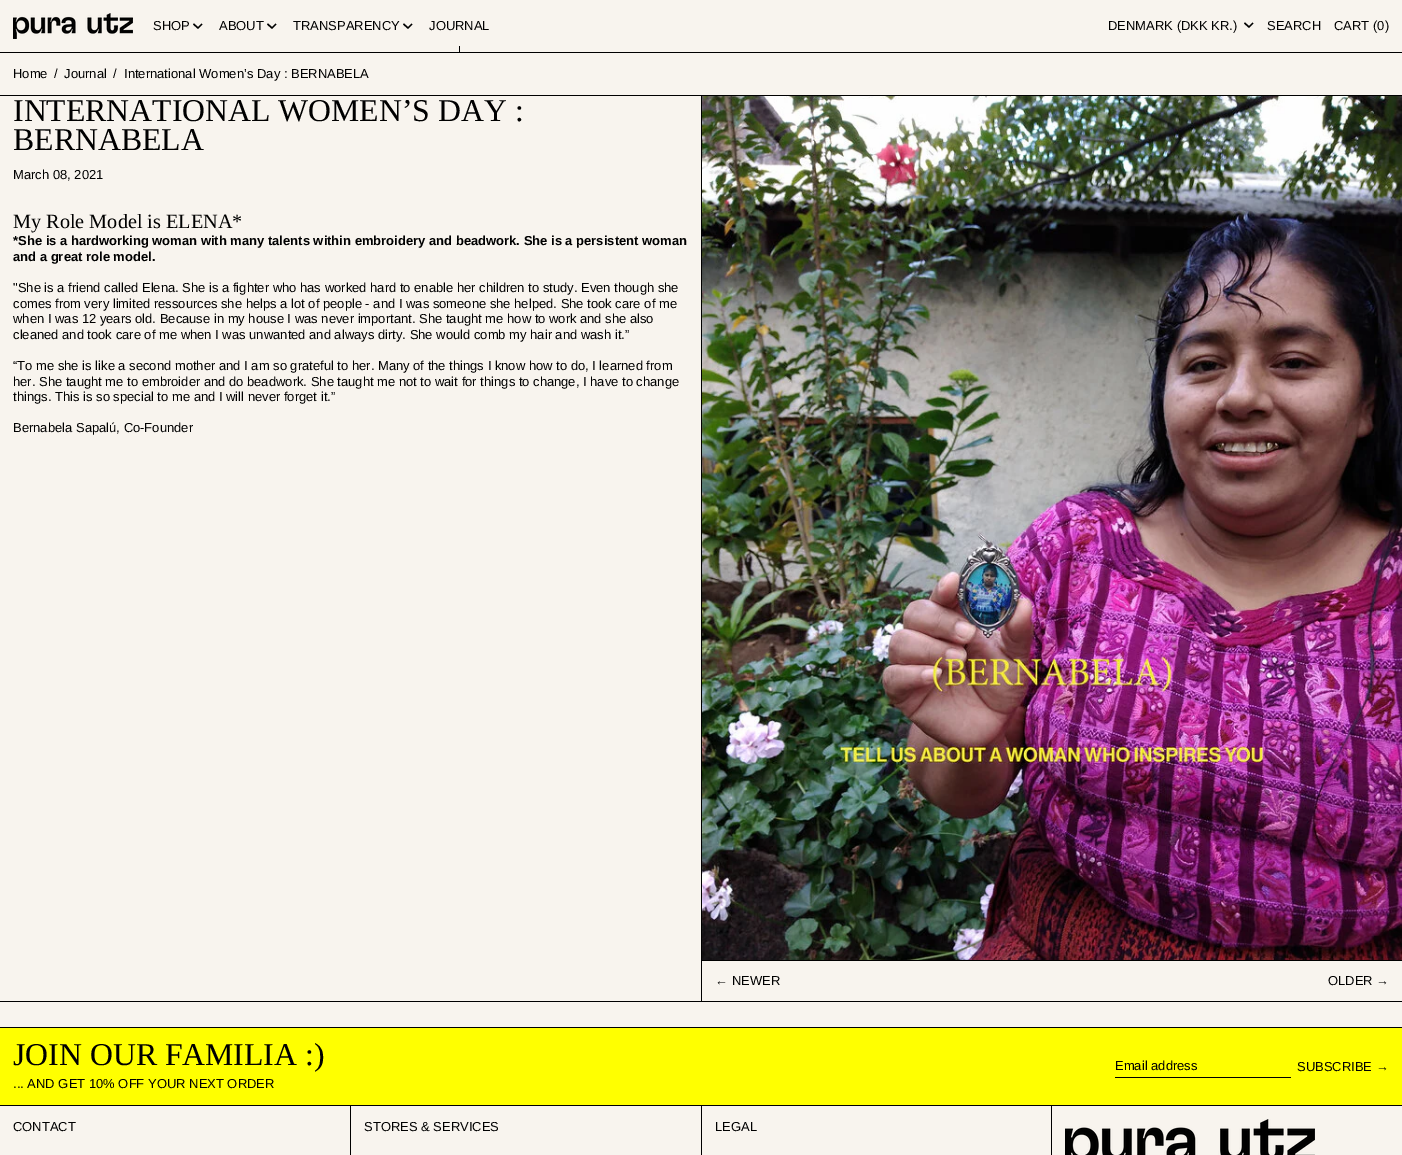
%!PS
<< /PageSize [1402 1155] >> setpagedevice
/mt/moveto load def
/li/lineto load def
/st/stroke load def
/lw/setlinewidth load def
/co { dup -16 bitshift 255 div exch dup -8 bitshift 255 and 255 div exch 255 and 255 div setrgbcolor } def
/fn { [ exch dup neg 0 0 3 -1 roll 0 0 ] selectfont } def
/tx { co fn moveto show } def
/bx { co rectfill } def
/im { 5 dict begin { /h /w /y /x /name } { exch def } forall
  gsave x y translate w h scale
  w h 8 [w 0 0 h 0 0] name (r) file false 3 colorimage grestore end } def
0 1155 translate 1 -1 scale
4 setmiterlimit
0 0 1402 1155 16#F8F4EE bx
0 52 1402 1 16#000000 bx
(media/1.raw) 13 13 120 26 im
1.4 lw
193.5 24 mt 198 28 li 202 24 li st
267.5 24 mt 272 28 li 276 24 li st
403.5 24 mt 408 28 li 412 24 li st
459 46 1 6 16#000000 bx
1244.5 23 mt 1249 27 li 1253 23 li st
0 95 1402 1 16#000000 bx
0 1001 1402 1 16#000000 bx
701 96 1 905 16#000000 bx
702 960 700 1 16#000000 bx
(media/2.raw) 702 96 700 864 im
0 1027 1402 1 16#000000 bx
0 1028 1402 77 16#FFFF00 bx
0 1105 1402 1 16#000000 bx
1115 1077 176 1 16#000000 bx
350 1106 702 49 16#000000 bx
351 1106 350 49 16#F8F4EE bx
702 1106 349 49 16#F8F4EE bx
(media/3.raw) 1065 1119 250 36 im
(SHOP) 153 30 /LiberationSans-Regular 13 16#000000 tx
(ABOUT) 219 30 /LiberationSans-Regular 13 16#000000 tx
(TRANSPARENCY) 293 30 /LiberationSans-Regular 13 16#000000 tx
(JOURNAL) 429 30 /LiberationSans-Regular 13 16#000000 tx
(DENMARK \(DKK KR.\)) 1108 30 /LiberationSans-Regular 13 16#000000 tx
(SEARCH) 1267 30 /LiberationSans-Regular 13 16#000000 tx
(CART \(0\)) 1334 30 /LiberationSans-Regular 13 16#000000 tx
(Home) 13 78 /LiberationSans-Regular 13 16#000000 tx
(/) 54 78 /LiberationSans-Regular 13 16#000000 tx
(Journal) 64 78 /LiberationSans-Regular 13 16#000000 tx
(/) 113 78 /LiberationSans-Regular 13 16#000000 tx
(International Women’s Day : BERNABELA) 124 78 /LiberationSans-Regular 13 16#000000 tx
(INTERNATIONAL WOMEN’S DAY :) 13 121 /LiberationSerif-Regular 31.75 16#000000 tx
(BERNABELA) 13 150 /LiberationSerif-Regular 31.75 16#000000 tx
(March 08, 2021) 13 179 /LiberationSans-Regular 13 16#000000 tx
(My Role Model is ELENA*) 13 228 /LiberationSerif-Regular 20.25 16#000000 tx
(*She is a hardworking woman with many talents within embroidery and beadwork. She is a persistent woman) 13 245 /LiberationSans-Bold 13 16#000000 tx
(and a great role model.) 13 261 /LiberationSans-Bold 13 16#000000 tx
("She is a friend called Elena. She is a fighter who has worked hard to enable her children to study. Even though she) 13 292 /LiberationSans-Regular 13 16#000000 tx
(comes from very limited ressources she helps a lot of people - and I was someone she helped. She took care of me) 13 308 /LiberationSans-Regular 13 16#000000 tx
(when I was 12 years old. Because in my house I was never important. She taught me how to work and she also) 13 323 /LiberationSans-Regular 13 16#000000 tx
(cleaned and took care of me when I was unwanted and always dirty. She would comb my hair and wash it.”) 13 339 /LiberationSans-Regular 13 16#000000 tx
(“To me she is like a second mother and I am so grateful to her. Many of the things I know how to do, I learned from) 13 370 /LiberationSans-Regular 13 16#000000 tx
(her. She taught me to embroider and do beadwork. She taught me not to wait for things to change, I have to change) 13 386 /LiberationSans-Regular 13 16#000000 tx
(things. This is so special to me and I will never forget it.”) 13 401 /LiberationSans-Regular 13 16#000000 tx
(Bernabela Sapalú, Co-Founder) 13 432 /LiberationSans-Regular 13 16#000000 tx
(← NEWER) 715 985 /LiberationSans-Regular 13 16#000000 tx
(OLDER →) 1328 985 /LiberationSans-Regular 13 16#000000 tx
(JOIN OUR FAMILIA :\)) 13 1065 /LiberationSerif-Regular 31.75 16#000000 tx
(... AND GET 10% OFF YOUR NEXT ORDER) 13 1088 /LiberationSans-Regular 13 16#000000 tx
(Email address) 1115 1070 /LiberationSans-Regular 13 16#000000 tx
(SUBSCRIBE →) 1297 1071 /LiberationSans-Regular 13 16#000000 tx
(CONTACT) 13 1131 /LiberationSans-Regular 13 16#000000 tx
(STORES & SERVICES) 364 1131 /LiberationSans-Regular 13 16#000000 tx
(LEGAL) 715 1131 /LiberationSans-Regular 13 16#000000 tx
showpage
